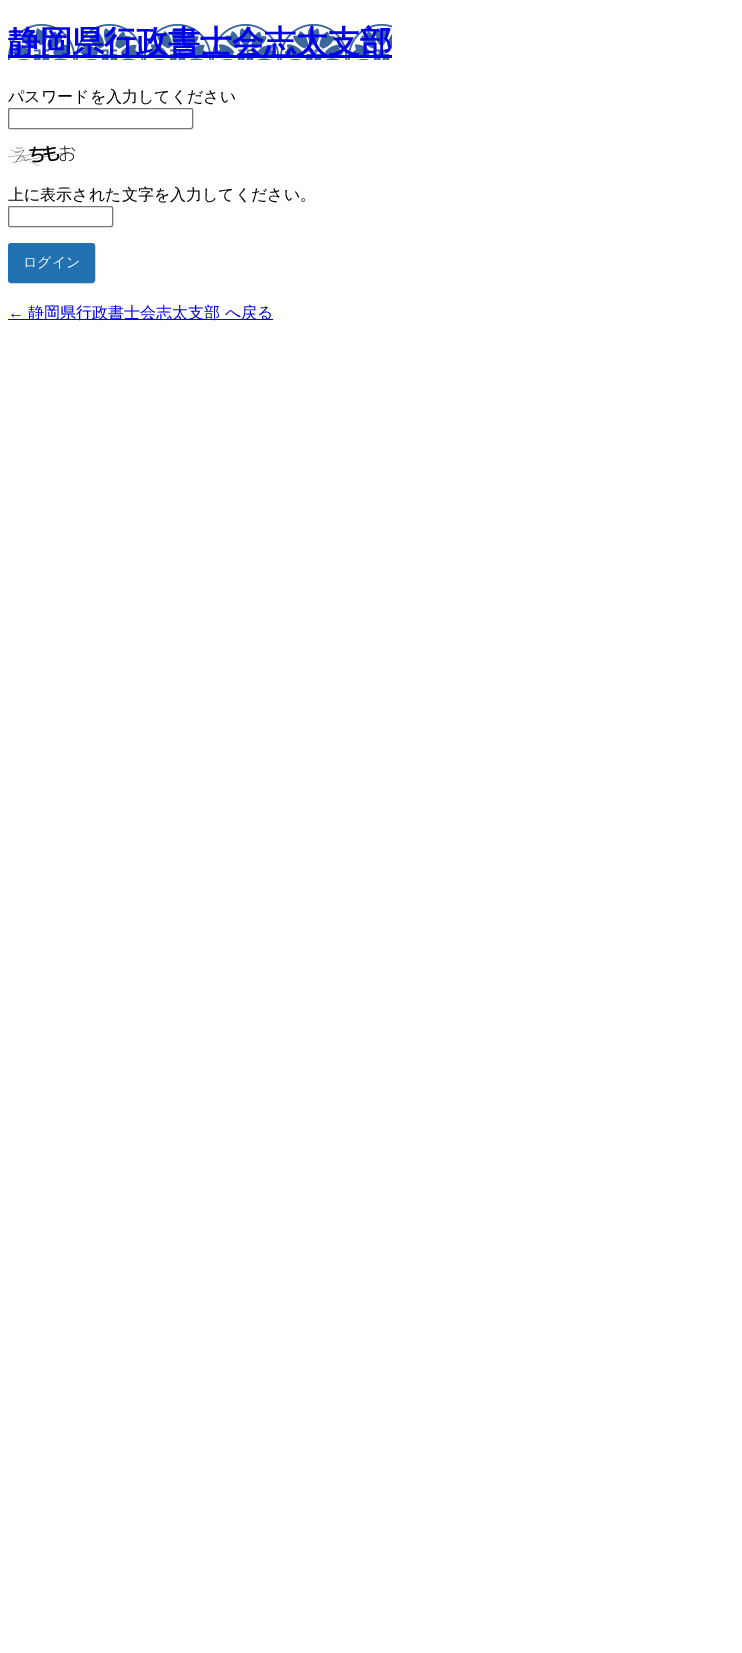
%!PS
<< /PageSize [742 1653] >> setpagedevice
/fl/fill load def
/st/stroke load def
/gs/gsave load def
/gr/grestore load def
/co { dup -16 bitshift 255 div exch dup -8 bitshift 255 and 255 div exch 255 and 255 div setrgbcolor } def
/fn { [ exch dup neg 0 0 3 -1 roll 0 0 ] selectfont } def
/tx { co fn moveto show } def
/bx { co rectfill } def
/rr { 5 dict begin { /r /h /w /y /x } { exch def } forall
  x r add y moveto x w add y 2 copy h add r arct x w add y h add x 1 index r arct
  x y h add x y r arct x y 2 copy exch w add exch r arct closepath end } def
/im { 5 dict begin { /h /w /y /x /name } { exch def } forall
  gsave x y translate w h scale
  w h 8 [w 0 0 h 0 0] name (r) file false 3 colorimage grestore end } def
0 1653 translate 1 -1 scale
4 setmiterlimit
0 0 742 1653 16#FFFFFF bx
(media/1.raw) 8 24 384 36 im
8 55 384 3 16#0000EE bx
16#767676 co
8.5 108.5 184 20 1.5 rr st
(media/2.raw) 8 145 68 21 im
8.5 206.5 104 20 1.5 rr st
16#2271B1 co
8.5 243.5 86 39 2.5 rr gs fl gr
st
8 319 265 1 16#0000EE bx
(静岡県行政書士会志太支部) 8 53 /WenQuanYiZenHei-Bold 32 16#0000EE tx
(パスワードを入力してください) 8 102 /WenQuanYiZenHei-Medium 16 16#000000 tx
(上に表示された文字を入力してください。) 8 200 /WenQuanYiZenHei-Medium 16 16#000000 tx
(ログイン) 23 267 /WenQuanYiZenHei-Medium 14 16#FFFFFF tx
(←) 8 318 /LiberationSerif-Regular 16 16#0000EE tx
(静岡県行政書士会志太支部 へ戻る) 28 318 /WenQuanYiZenHei-Medium 16 16#0000EE tx
showpage
